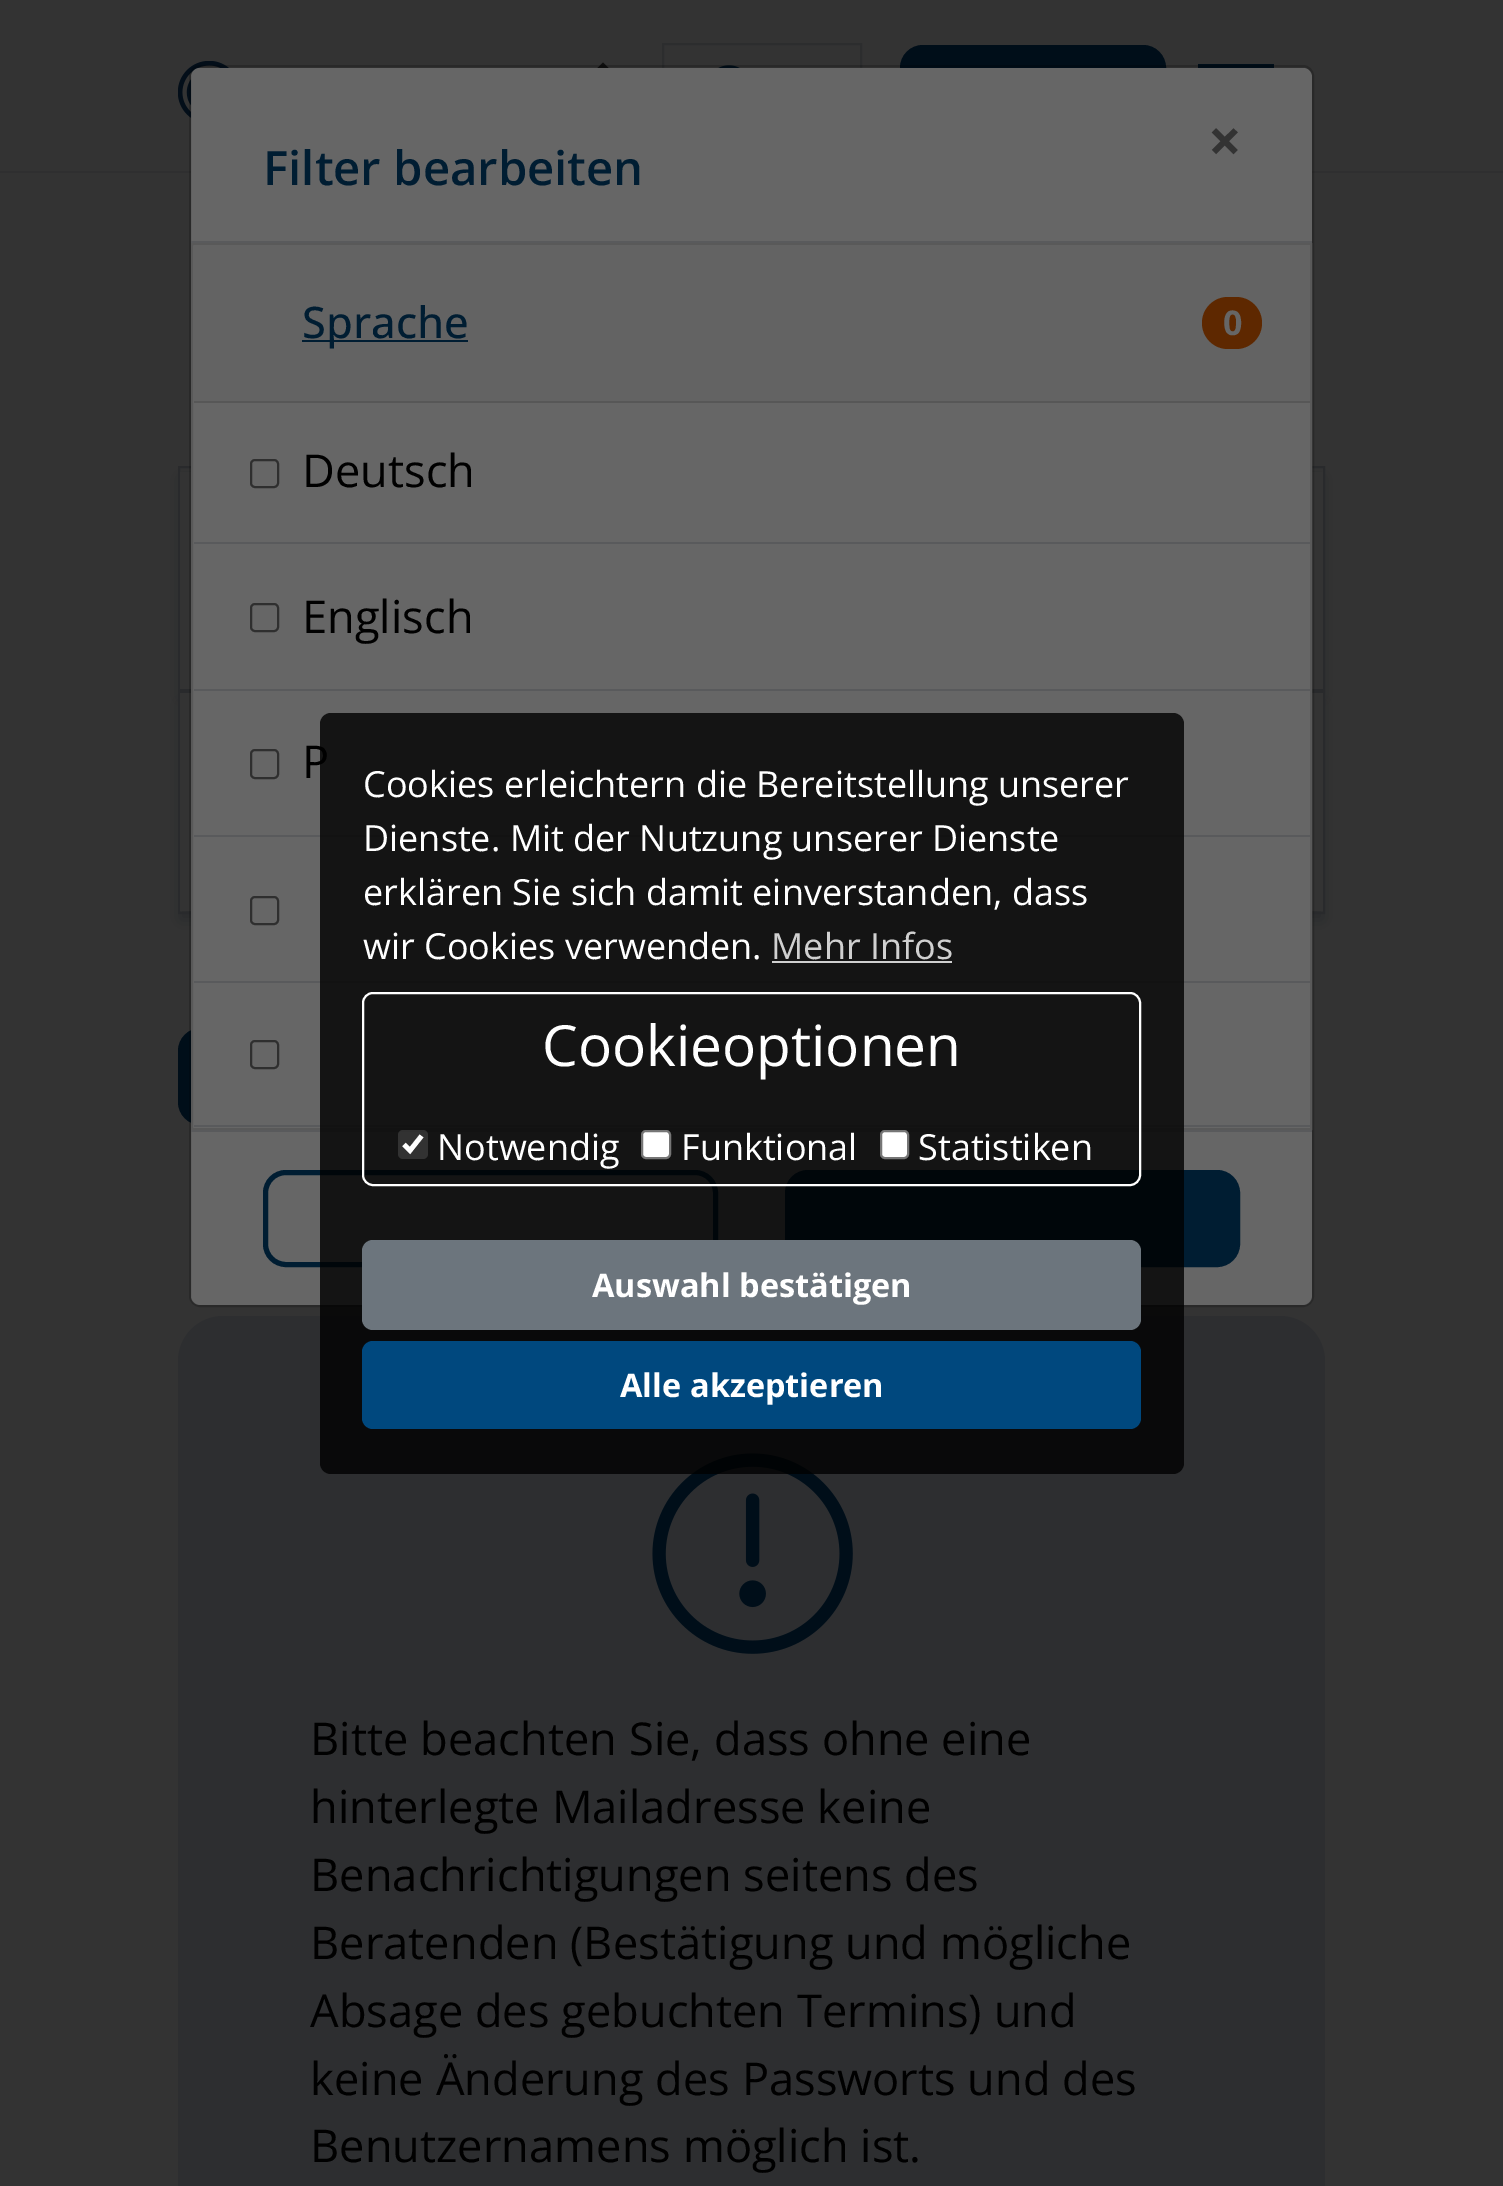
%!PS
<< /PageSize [1503 2186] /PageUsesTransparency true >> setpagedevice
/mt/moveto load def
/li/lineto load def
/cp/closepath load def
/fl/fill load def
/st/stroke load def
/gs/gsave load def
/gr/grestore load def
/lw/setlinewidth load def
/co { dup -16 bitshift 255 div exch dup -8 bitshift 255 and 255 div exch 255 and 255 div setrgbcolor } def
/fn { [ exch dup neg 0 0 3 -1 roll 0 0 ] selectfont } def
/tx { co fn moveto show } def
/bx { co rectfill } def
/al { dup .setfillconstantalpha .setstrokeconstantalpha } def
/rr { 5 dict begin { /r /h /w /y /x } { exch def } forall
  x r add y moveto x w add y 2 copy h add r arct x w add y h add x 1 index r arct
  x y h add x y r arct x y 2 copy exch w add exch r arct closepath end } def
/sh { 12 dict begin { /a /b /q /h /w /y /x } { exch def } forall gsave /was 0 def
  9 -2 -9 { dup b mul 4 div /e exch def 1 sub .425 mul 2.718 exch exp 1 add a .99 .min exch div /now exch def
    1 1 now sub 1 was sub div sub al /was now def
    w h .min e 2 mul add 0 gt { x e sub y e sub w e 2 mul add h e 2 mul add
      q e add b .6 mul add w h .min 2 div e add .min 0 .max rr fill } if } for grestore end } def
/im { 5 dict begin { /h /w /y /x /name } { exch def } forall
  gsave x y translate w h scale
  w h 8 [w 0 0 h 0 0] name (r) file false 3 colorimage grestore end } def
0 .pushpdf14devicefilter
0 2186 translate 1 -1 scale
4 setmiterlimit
0 0 1503 2186 16#333333 bx
0 171 1503 2 16#2F2F30 bx
(media/1.raw) 178 61 51 57 im
(media/2.raw) 597 62 12 6 im
16#2C2D2E co
2 lw
663 44 198 90 rectstroke
(media/3.raw) 718 65 22 3 im
16#000E19 co
902.5 47.5 261 83 20.5 rr gs fl gr
5 lw
st
1198 64 mt 1274 64 li 1274 72 li 1198 72 li cp 1198 93 mt 1198 85 li 1274 85 li 1274 93 li cp 1198 114 mt 1198 106 li 1274 106 li 1274 114 li cp fl
16#292A2C co
2 lw
179 467 1145 223 rectstroke
179 692 1145 221 rectstroke
180 477 1143 221 0 8 1 sh
180 472 1143 217 16#333333 bx
16#292A2C co
180 702 1143 218 0 8 1 sh
180 693 1143 218 16#333333 bx
16#000E19 co
180.5 1030.5 546 92 20.5 rr gs fl gr
5 lw
st
16#666666 co
191 68 1121 1237 9 rr fl
0.2 al
16#000000 co
2 lw
190 66 1123 1240 10 rr st
1 al
191 241 1121 2 16#595A5C bx
16#595959 co
192 244 1119 885 rectstroke
194 245 1116 156 16#636363 bx
194 401 1116 2 16#575757 bx
302 340 166 2 16#001D32 bx
16#5E2800 co
1202 297 60 52 26 rr fl
194 542 1116 2 16#595A5C bx
16#2F2F2F co
251 460 27 27 4 rr st
194 689 1116 2 16#595A5C bx
16#2F2F2F co
251 604 27 27 4 rr st
194 835 1116 2 16#595A5C bx
16#2F2F2F co
251 750 27 28 4 rr st
194 981 1116 2 16#595A5C bx
16#2F2F2F co
251 897 27 27 4 rr st
194 1125 1116 2 16#595A5C bx
16#2F2F2F co
251 1041 27 27 4 rr st
191 1130 1121 2 16#595A5C bx
16#001D32 co
5 lw
265.5 1172.5 450 92 20.5 rr st
787.5 1172.5 450 92 20.5 rr gs fl gr
st
16#2D2E30 co
178 1316 1147 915 45 rr fl
(media/4.raw) 652 1453 201 201 im
(×) 1208 162 /OpenSans-Bold 59 16#333333 tx
(Filter bearbeiten) 263 185 /OpenSans-SemiBold 47.25 16#001D32 tx
(Sprache) 302 338 /OpenSans-Medium 43.5 16#001D32 tx
(0) 1223 335 /OpenSans-Bold 34 16#666666 tx
(Deutsch) 302 487 /OpenSans-Regular 45.25 16#000000 tx
(Englisch) 302 633 /OpenSans-Regular 45.25 16#000000 tx
(P) 302 778 /OpenSans-Regular 45.25 16#000000 tx
(Bitte beachten Sie, dass ohne eine) 310 1755 /OpenSans-Regular 45.25 16#000000 tx
(hinterlegte Mailadresse keine) 310 1823 /OpenSans-Regular 45.25 16#000000 tx
(Benachrichtigungen seitens des) 310 1891 /OpenSans-Regular 45.25 16#000000 tx
(Beratenden \(Bestätigung und mögliche) 310 1959 /OpenSans-Regular 45.25 16#000000 tx
(Absage des gebuchten Termins\) und) 310 2027 /OpenSans-Regular 45.25 16#000000 tx
(keine Änderung des Passworts und des) 310 2095 /OpenSans-Regular 45.25 16#000000 tx
(Benutzernamens möglich ist.) 310 2162 /OpenSans-Regular 45.25 16#000000 tx
0.8 al
320 713 864 761 11 rr fl
1 al
(Cookies erleichtern die Bereitstellung unserer) 363 797 /OpenSans-Regular 36 16#FFFFFF tx
(Dienste. Mit der Nutzung unserer Dienste) 363 851 /OpenSans-Regular 36 16#FFFFFF tx
(erklären Sie sich damit einverstanden, dass) 363 905 /OpenSans-Regular 36 16#FFFFFF tx
(wir Cookies verwenden.) 363 959 /OpenSans-Regular 36 16#FFFFFF tx
(Mehr Infos) 771 959 /OpenSans-Regular 36 16#D0D0D0 tx
772 961 180 2 16#D0D0D0 bx
16#FFFFFF co
2 lw
363 993 777 192 10 rr st
(Cookieoptionen) 542 1066 /OpenSans-Regular 56.75 16#FFFFFF tx
0.3 al
16#767676 co
398 1130 30 29 5 rr fl
1 al
16#FFFFFF co
4.7 lw
404 1144.5 mt 410 1150.5 li 421.5 1136 li st
(Notwendig) 437 1160 /OpenSans-Regular 36 16#FFFFFF tx
642 1131 28 27 4 rr gs fl gr
16#767676 co
2 lw
st
(Funktional) 681 1160 /OpenSans-Regular 36 16#FFFFFF tx
881 1131 27 27 4 rr gs fl gr
16#767676 co
st
(Statistiken) 918 1160 /OpenSans-Regular 36 16#FFFFFF tx
16#6C757D co
362 1240 779 90 11 rr fl
(Auswahl bestätigen) 592 1297 /OpenSans-Bold 32.5 16#FFFFFF tx
16#00487E co
362 1341 779 88 11 rr fl
(Alle akzeptieren) 620 1397 /OpenSans-Bold 32.5 16#FFFFFF tx
.poppdf14devicefilter showpage
